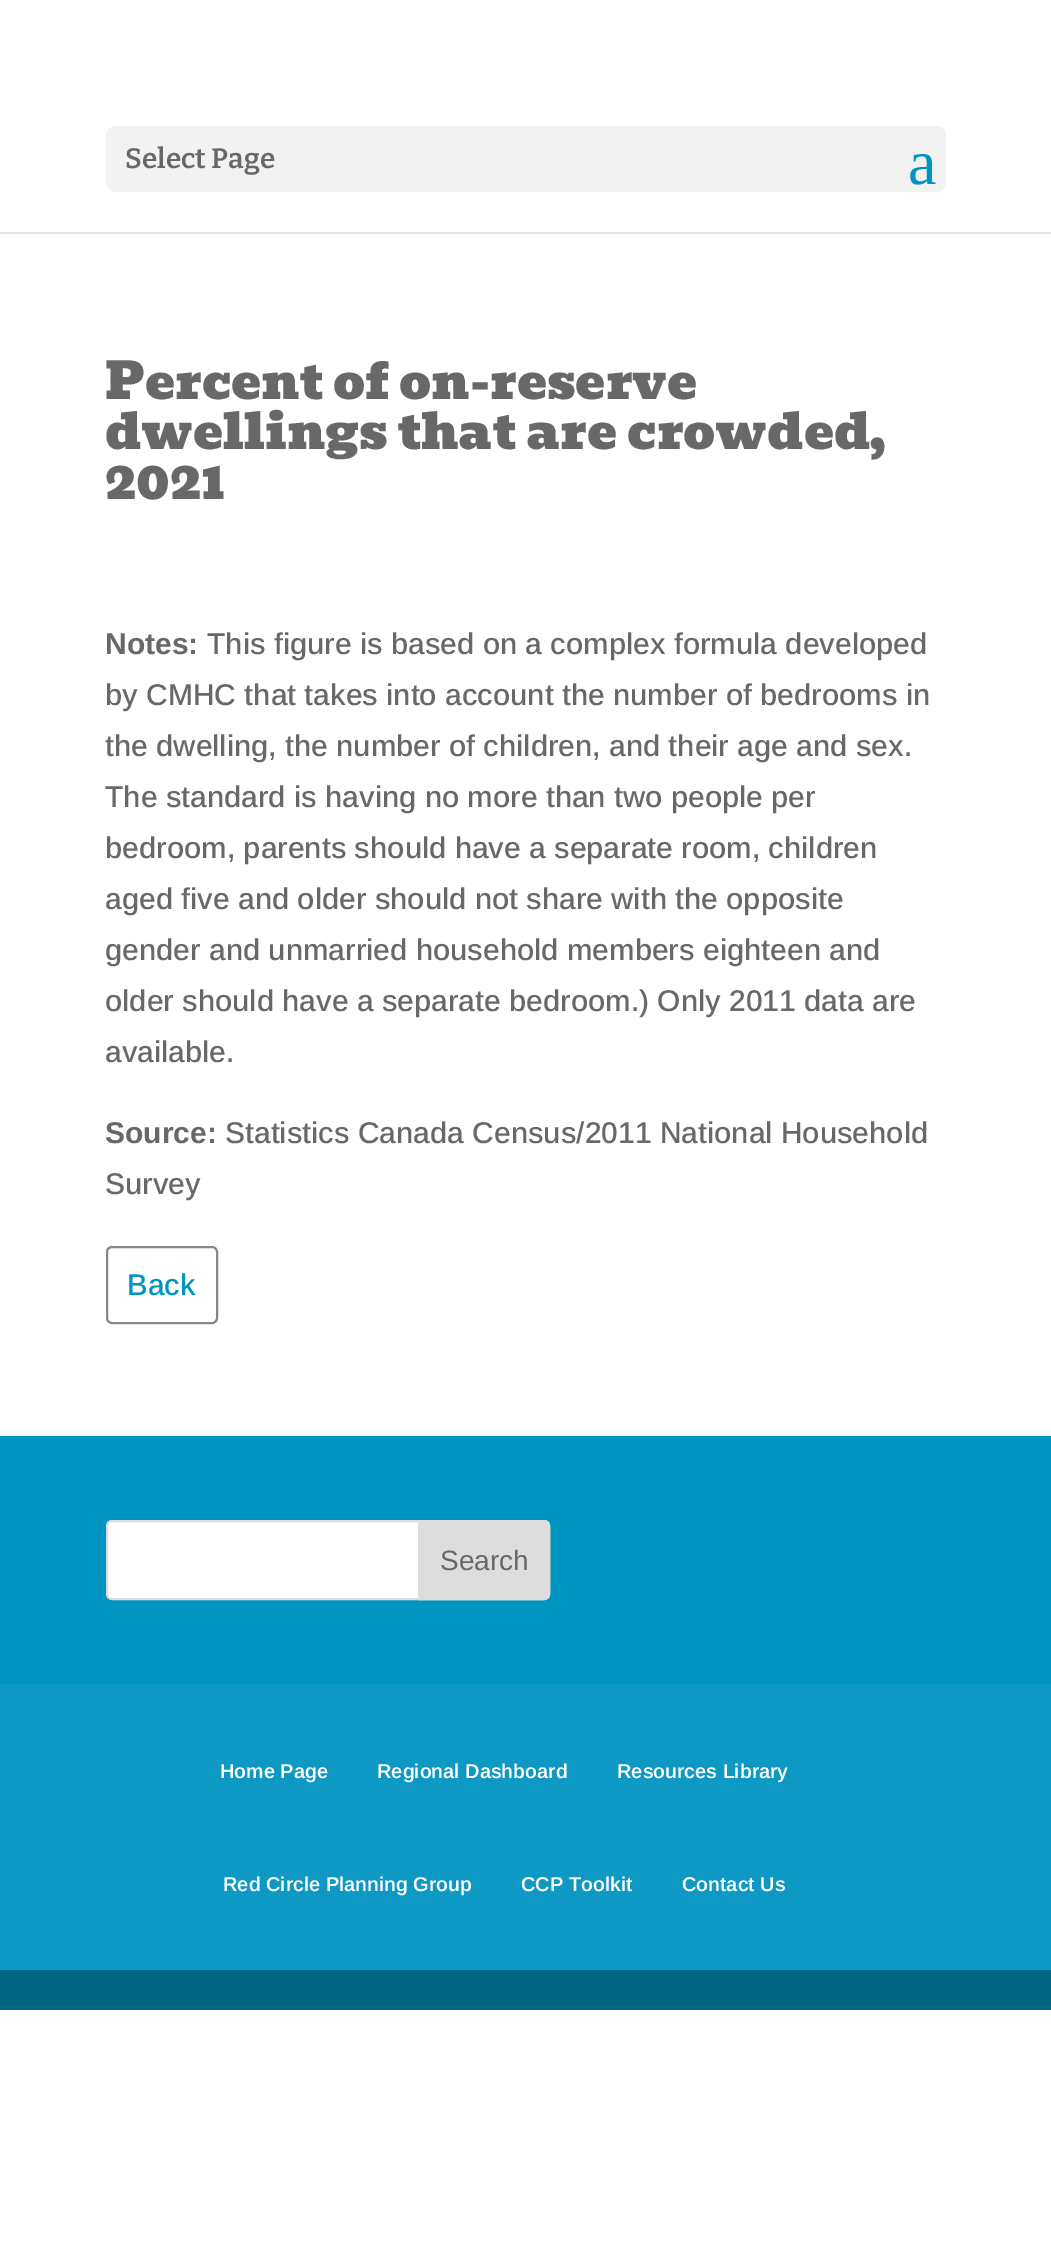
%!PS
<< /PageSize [1051 2242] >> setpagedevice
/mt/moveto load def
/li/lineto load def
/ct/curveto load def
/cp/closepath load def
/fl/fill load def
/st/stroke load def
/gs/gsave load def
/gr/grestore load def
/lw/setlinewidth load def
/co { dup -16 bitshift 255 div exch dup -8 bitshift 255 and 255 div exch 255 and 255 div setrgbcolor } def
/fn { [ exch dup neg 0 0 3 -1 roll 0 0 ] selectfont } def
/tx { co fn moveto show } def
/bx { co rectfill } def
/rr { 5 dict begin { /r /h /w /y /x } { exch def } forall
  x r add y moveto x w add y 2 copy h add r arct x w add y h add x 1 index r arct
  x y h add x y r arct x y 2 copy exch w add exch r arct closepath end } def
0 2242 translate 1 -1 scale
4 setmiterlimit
0 0 1051 2242 16#FFFFFF bx
0 232 1051 2 16#E6E6E6 bx
16#F2F2F2 co
106 126 840 66 10 rr fl
16#888888 co
2 lw
107 1247 110 76 5 rr st
0 1436 1051 248 16#0094C1 bx
16#FFFFFF co
107 1521 442 78 5 rr gs fl gr
16#DDDDDD co
st
419 1521 mt 544 1521 li 547 1521 549 1523 549 1526 ct 549 1594 li 549 1597 547 1599 544 1599 ct 419 1599 li cp gs fl gr
st
0 1684 1051 286 16#0D99C3 bx
0 1970 1051 40 16#006583 bx
(Select Page) 125 168 /Bitter-SemiBold 28 16#686868 tx
(a) 908 184 /LiberationSerif-Regular 64 16#0094C1 tx
(Percent of on-reserve) 105 399 /Bevan-Regular 50 16#686868 tx
(dwellings that are crowded,) 105 449 /Bevan-Regular 50 16#686868 tx
(2021) 105 499 /Bevan-Regular 50 16#686868 tx
(Notes:) 105 654 /Arimo-Bold 30 16#686868 tx
(This figure is based on a complex formula developed) 207 654 /Arimo-Medium 30 16#686868 tx
(by CMHC that takes into account the number of bedrooms in) 105 705 /Arimo-Medium 30 16#686868 tx
(the dwelling, the number of children, and their age and sex.) 105 756 /Arimo-Medium 30 16#686868 tx
(The standard is having no more than two people per) 105 807 /Arimo-Medium 30 16#686868 tx
(bedroom, parents should have a separate room, children) 105 858 /Arimo-Medium 30 16#686868 tx
(aged five and older should not share with the opposite) 105 909 /Arimo-Medium 30 16#686868 tx
(gender and unmarried household members eighteen and) 105 960 /Arimo-Medium 30 16#686868 tx
(older should have a separate bedroom.\) Only 2011 data are) 105 1011 /Arimo-Medium 30 16#686868 tx
(available.) 105 1062 /Arimo-Medium 30 16#686868 tx
(Source:) 105 1143 /Arimo-Bold 30 16#686868 tx
(Statistics Canada Census/2011 National Household) 225 1143 /Arimo-Medium 30 16#686868 tx
(Survey) 105 1194 /Arimo-Medium 30 16#686868 tx
(Back) 127 1295 /Arimo-Medium 30 16#0094C1 tx
(Search) 440 1570 /Arimo-Regular 28 16#686868 tx
(Home Page) 220 1778 /Arimo-SemiBold 20 16#FFFFFF tx
(Regional Dashboard) 377 1778 /Arimo-SemiBold 20 16#FFFFFF tx
(Resources Library) 617 1778 /Arimo-SemiBold 20 16#FFFFFF tx
(Red Circle Planning Group) 223 1891 /Arimo-SemiBold 20 16#FFFFFF tx
(CCP Toolkit) 521 1891 /Arimo-SemiBold 20 16#FFFFFF tx
(Contact Us) 682 1891 /Arimo-SemiBold 20 16#FFFFFF tx
showpage
